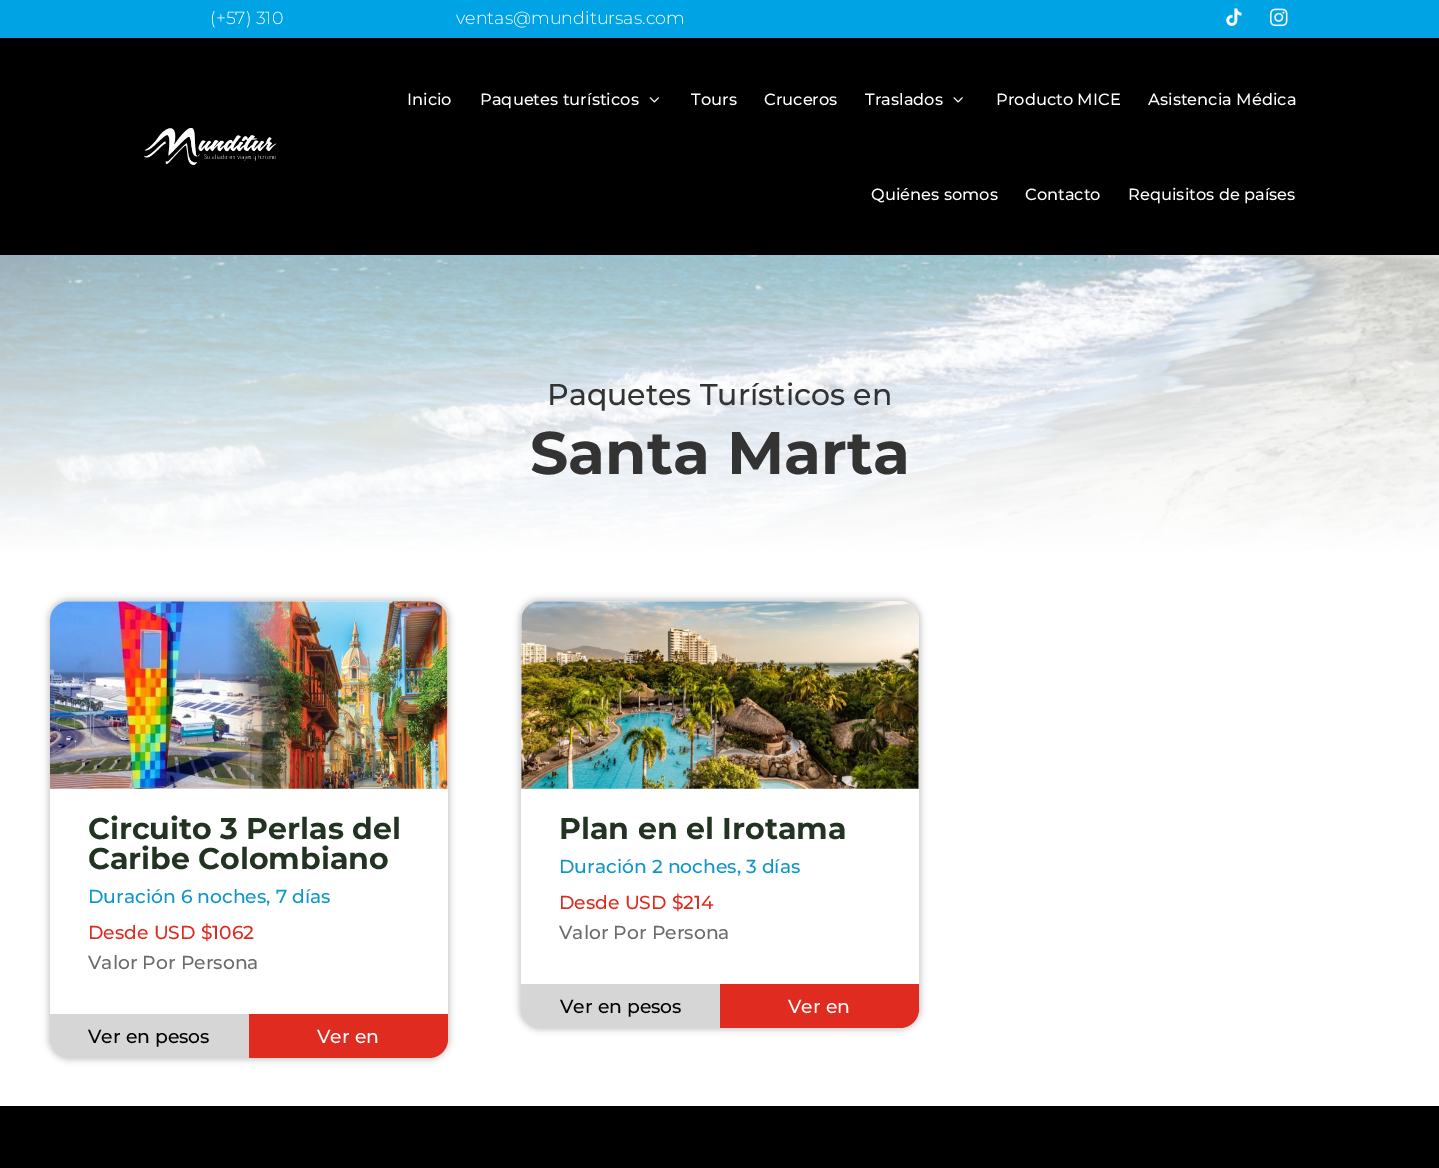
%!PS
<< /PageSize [1439 1168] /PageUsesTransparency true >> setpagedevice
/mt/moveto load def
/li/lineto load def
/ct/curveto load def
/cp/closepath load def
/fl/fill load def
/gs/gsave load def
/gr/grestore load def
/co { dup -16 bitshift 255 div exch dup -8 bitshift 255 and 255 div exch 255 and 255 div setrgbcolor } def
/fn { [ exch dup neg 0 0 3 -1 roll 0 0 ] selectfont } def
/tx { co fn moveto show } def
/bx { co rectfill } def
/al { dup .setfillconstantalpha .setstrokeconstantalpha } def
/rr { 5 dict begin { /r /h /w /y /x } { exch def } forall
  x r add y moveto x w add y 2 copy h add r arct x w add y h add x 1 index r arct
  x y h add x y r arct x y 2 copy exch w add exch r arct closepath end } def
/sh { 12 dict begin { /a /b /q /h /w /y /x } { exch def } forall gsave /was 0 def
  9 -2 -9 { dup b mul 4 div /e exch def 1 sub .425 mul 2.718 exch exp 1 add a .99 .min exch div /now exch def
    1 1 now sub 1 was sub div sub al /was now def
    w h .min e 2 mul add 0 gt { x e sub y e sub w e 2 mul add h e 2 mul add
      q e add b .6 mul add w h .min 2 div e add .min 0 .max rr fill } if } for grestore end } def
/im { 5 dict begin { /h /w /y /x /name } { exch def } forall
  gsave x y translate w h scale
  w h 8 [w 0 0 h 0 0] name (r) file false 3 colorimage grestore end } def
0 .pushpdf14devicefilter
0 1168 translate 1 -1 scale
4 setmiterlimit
0 0 1439 1168 16#FFFFFF bx
0 0 1439 38 16#00A4E5 bx
(media/1.raw) 1226 8 16 18 im
(media/2.raw) 1270 8 18 19 im
0 38 1439 217 16#000000 bx
(media/3.raw) 144 128 133 38 im
(media/4.raw) 649 97 10 6 im
(media/5.raw) 953 97 10 6 im
(media/6.raw) 0 255 1439 296 im
gs
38 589 mt 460 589 li 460 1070 li 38 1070 li cp 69 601 mt 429 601 li 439.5 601 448 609.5 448 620 ct 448 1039 li 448 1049.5 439.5 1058 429 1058 ct 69 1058 li 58.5 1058 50 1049.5 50 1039 ct 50 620 li 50 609.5 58.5 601 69 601 ct cp eoclip newpath
48 599 402 461 21 3 .2 sh
gr
(media/7.raw) 50 601 398 188 im
16#D6D6D6 co
50 1014 mt 249 1014 li 249 1058 li 69 1058 li 58.5 1058 50 1049.5 50 1039 ct cp fl
16#E02B20 co
249 1014 mt 448 1014 li 448 1039 li 448 1049.5 439.5 1058 429 1058 ct 249 1058 li cp fl
gs
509 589 mt 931 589 li 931 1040 li 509 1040 li cp 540 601 mt 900 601 li 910.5 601 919 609.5 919 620 ct 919 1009 li 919 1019.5 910.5 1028 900 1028 ct 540 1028 li 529.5 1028 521 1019.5 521 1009 ct 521 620 li 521 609.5 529.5 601 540 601 ct cp eoclip newpath
16#000000 co
519 599 402 431 21 3 .2 sh
gr
(media/8.raw) 521 601 398 188 im
16#D6D6D6 co
521 984 mt 720 984 li 720 1028 li 540 1028 li 529.5 1028 521 1019.5 521 1009 ct cp fl
16#E02B20 co
720 984 mt 919 984 li 919 1009 li 919 1019.5 910.5 1028 900 1028 ct 720 1028 li cp fl
0 1106 1439 62 16#000000 bx
(\(+57\) 310) 210 24 /Montserrat-Light 17.5 16#FFFFFF tx
(ventas@munditursas.com) 456 24 /Montserrat-Light 17.5 16#FFFFFF tx
(Inicio) 407 105 /Montserrat-Medium 16.25 16#FFFFFF tx
(Paquetes turísticos) 480 105 /Montserrat-Medium 16.25 16#FFFFFF tx
(Tours) 691 105 /Montserrat-Medium 16.25 16#FFFFFF tx
(Cruceros) 764 105 /Montserrat-Medium 16.25 16#FFFFFF tx
(Traslados) 865 105 /Montserrat-Medium 16.25 16#FFFFFF tx
(Producto MICE) 996 105 /Montserrat-Medium 16.25 16#FFFFFF tx
(Asistencia Médica) 1148 105 /Montserrat-Medium 16.25 16#FFFFFF tx
(Quiénes somos) 871 200 /Montserrat-Medium 16.25 16#FFFFFF tx
(Contacto) 1025 200 /Montserrat-Medium 16.25 16#FFFFFF tx
(Requisitos de países) 1128 200 /Montserrat-Medium 16.25 16#FFFFFF tx
(Paquetes Turísticos en) 547 405 /Montserrat-Medium 30 16#333333 tx
(Santa Marta) 530 474 /Montserrat-Bold 60 16#333333 tx
(Circuito 3 Perlas del) 88 839 /Montserrat-Bold 30 16#223322 tx
(Caribe Colombiano) 88 869 /Montserrat-Bold 30 16#223322 tx
(Duración 6 noches, 7 días) 88 903 /Montserrat-Medium 18.75 16#0C96C9 tx
(Desde USD $1062) 88 939 /Montserrat-Medium 18.75 16#E02B20 tx
(Valor Por Persona) 88 969 /Montserrat-Medium 18.75 16#6B6B6B tx
(Ver en pesos) 88 1043 /Montserrat-Medium 18.75 16#000000 tx
(Ver en) 317 1043 /Montserrat-Medium 18.75 16#FFFFFF tx
(Plan en el Irotama) 559 839 /Montserrat-Bold 30 16#223322 tx
(Duración 2 noches, 3 días) 559 873 /Montserrat-Medium 18.75 16#0C96C9 tx
(Desde USD $214) 559 909 /Montserrat-Medium 18.75 16#E02B20 tx
(Valor Por Persona) 559 939 /Montserrat-Medium 18.75 16#6B6B6B tx
(Ver en pesos) 560 1013 /Montserrat-Medium 18.75 16#000000 tx
(Ver en) 788 1013 /Montserrat-Medium 18.75 16#FFFFFF tx
.poppdf14devicefilter showpage
